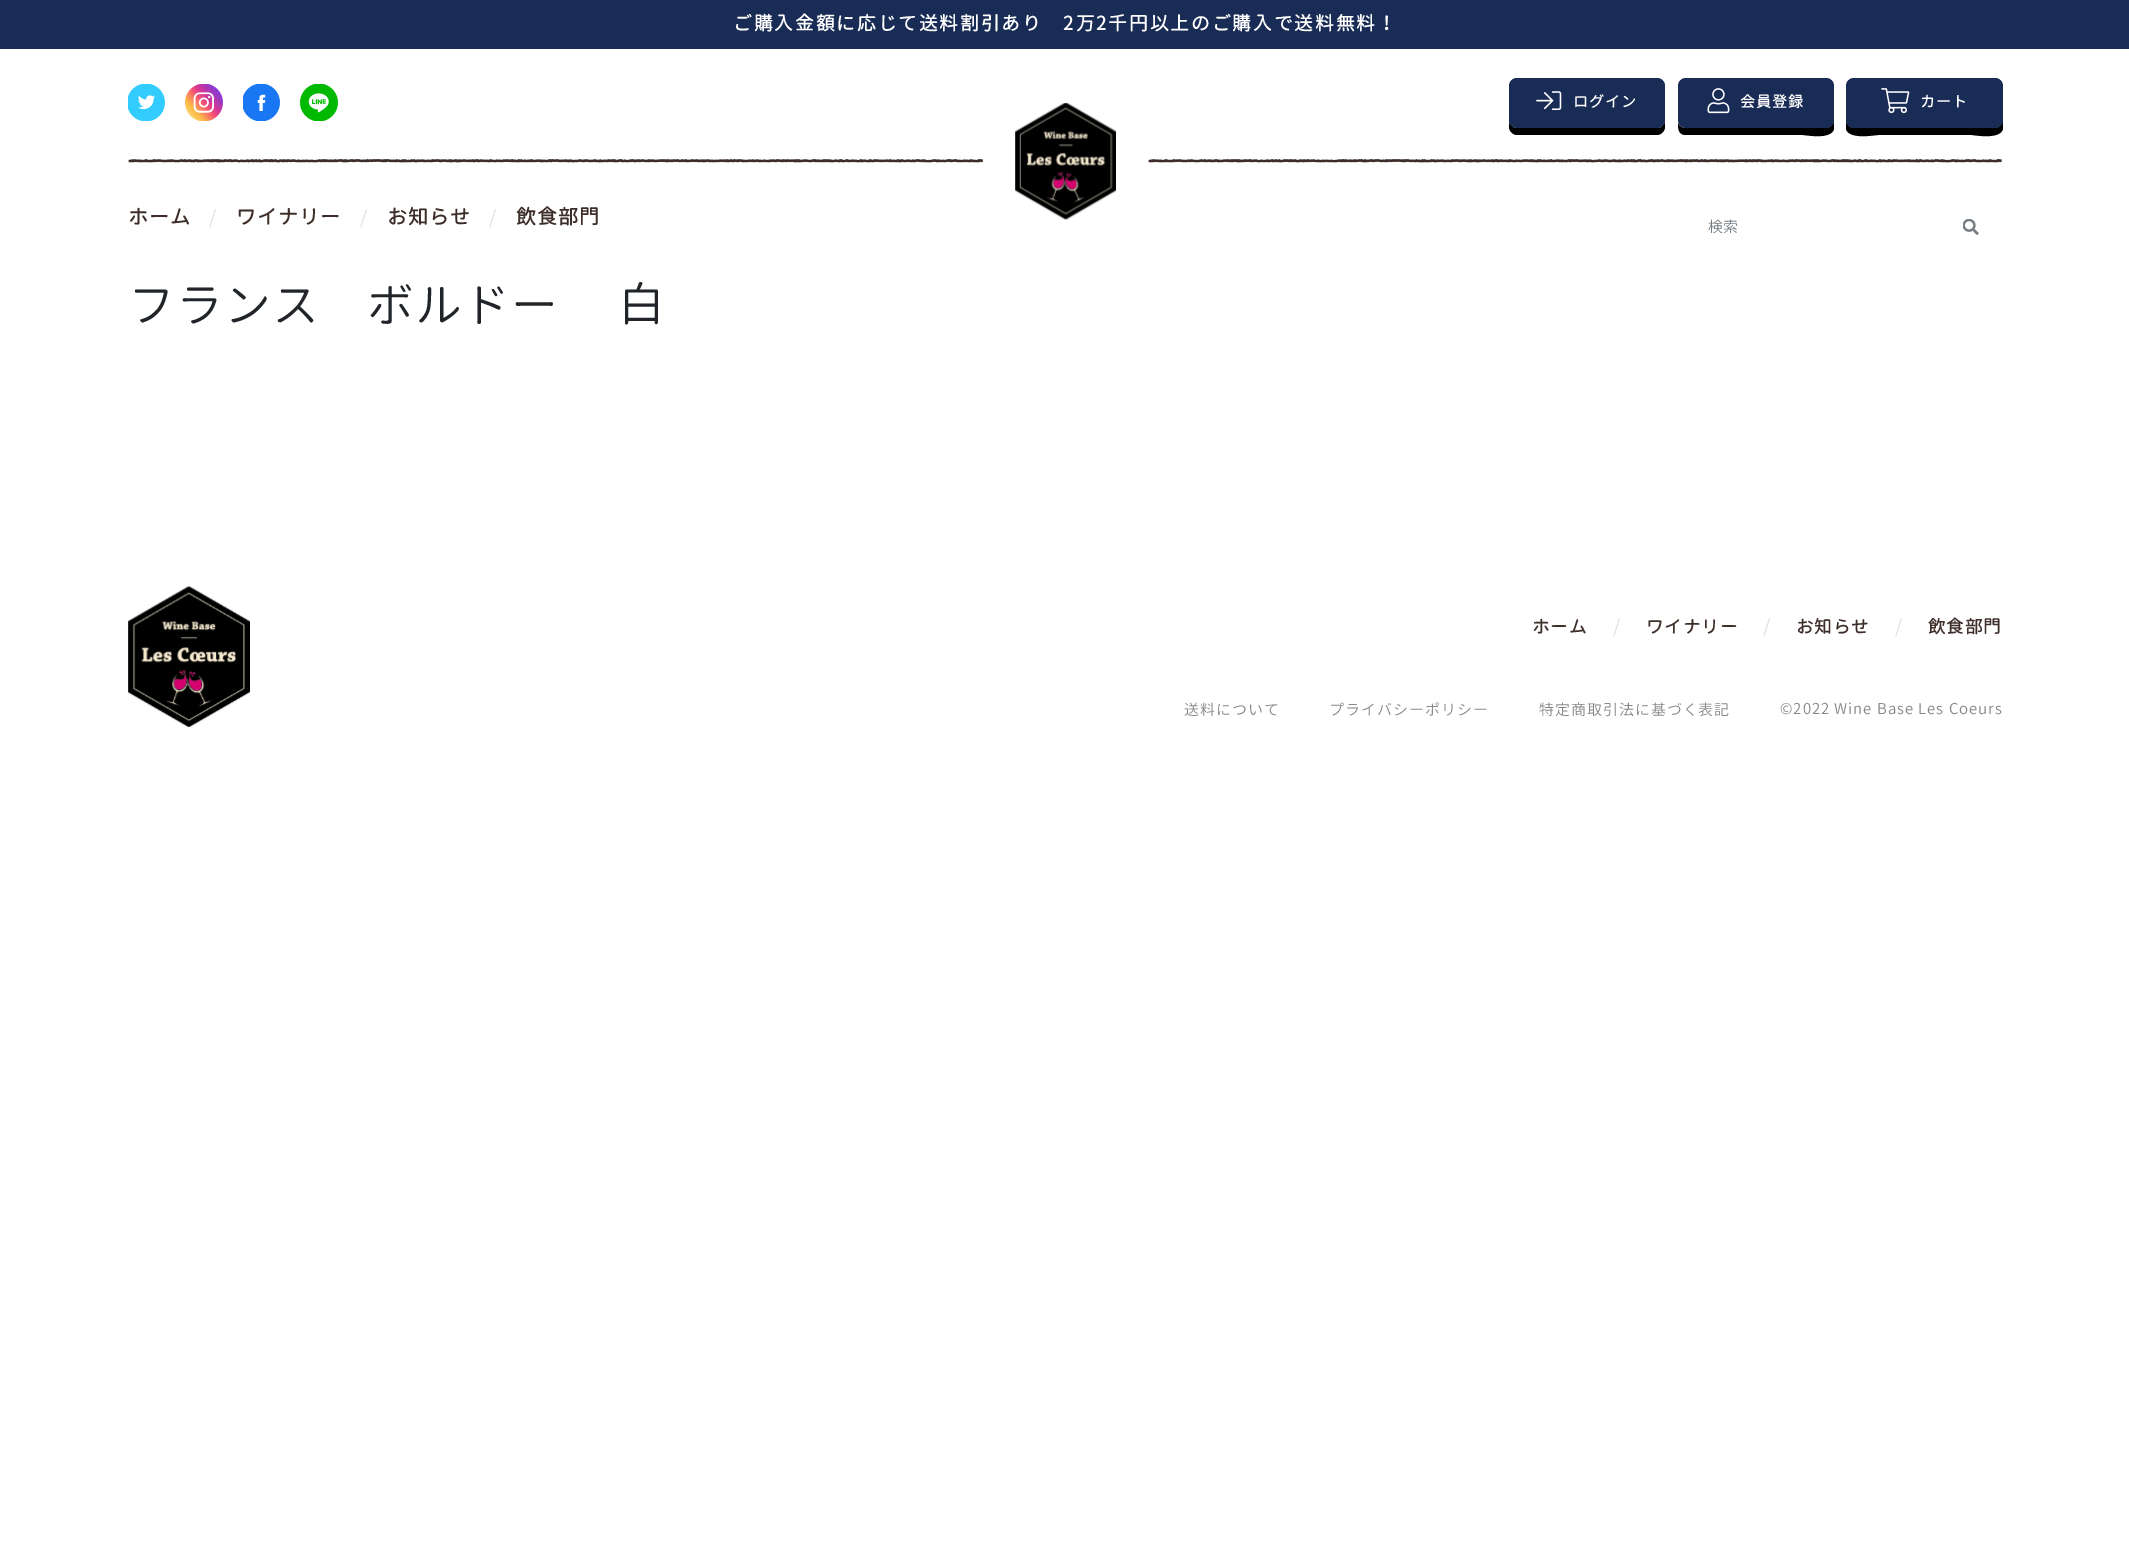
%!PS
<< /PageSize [2129 1566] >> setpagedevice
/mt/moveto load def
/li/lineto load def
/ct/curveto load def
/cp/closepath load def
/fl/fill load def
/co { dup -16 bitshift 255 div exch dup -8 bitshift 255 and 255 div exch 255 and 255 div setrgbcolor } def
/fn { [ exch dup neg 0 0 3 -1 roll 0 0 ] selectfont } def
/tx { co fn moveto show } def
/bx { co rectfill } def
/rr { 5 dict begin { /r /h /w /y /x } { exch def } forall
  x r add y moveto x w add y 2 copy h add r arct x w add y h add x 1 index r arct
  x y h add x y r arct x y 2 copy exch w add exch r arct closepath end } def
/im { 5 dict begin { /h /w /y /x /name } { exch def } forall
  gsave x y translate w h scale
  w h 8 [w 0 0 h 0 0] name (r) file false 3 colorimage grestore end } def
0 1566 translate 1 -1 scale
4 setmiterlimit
0 0 2129 1566 16#FFFFFF bx
0 0 2129 49 16#192C55 bx
(media/1.raw) 128 84 37 37 im
(media/2.raw) 185 84 38 37 im
(media/3.raw) 243 84 37 37 im
(media/4.raw) 300 84 38 37 im
16#000000 co
1509 122 mt 1509 127 li 1509 131 1513 135 1517 135 ct 1657 135 li 1661 135 1665 131 1665 127 ct 1665 120 li 1665 124 1662 128 1658 128 ct 1516 128 li 1513 128 1510 125 1509 122 ct cp fl
16#192C55 co
1509 78 156 50 8 rr fl
(media/5.raw) 1536 91 26 19 im
16#000000 co
1678 123 mt 1678 128 1678 135 1686 135 ct 1803 135 li 1806 135 1831 140 1834 129 ct 1834 91 li 1834 120 li 1834 124 1830 128 1826 128 ct 1685 128 li 1682 128 1679 126 1678 123 ct cp fl
16#192C55 co
1678 78 156 50 8 rr fl
(media/6.raw) 1707 88 23 26 im
16#000000 co
1846 91 mt 1846 129 li 1849 140 1875 135 1878 135 ct 1972 135 li 1974 135 2000 140 2003 129 ct 2003 99 li 2002 90 li 2002 120 li 2002 124 1999 128 1995 128 ct 1854 128 li 1850 128 1846 124 1846 120 ct cp fl
16#192C55 co
1846 78 157 50 8 rr fl
(media/7.raw) 1881 88 29 26 im
(media/8.raw) 128 159 855 4 im
(media/9.raw) 1015 103 101 117 im
(media/10.raw) 1148 159 854 4 im
(media/11.raw) 1963 219 16 16 im
(media/12.raw) 128 586 122 142 im
/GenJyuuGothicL-Bold 18.75 fn
16#FFFFFF co
733 30 mt 1.9 0 (ご購入金額に応じて送料割引あり　2万2千円以上のご購入で送料無料！) ashow
/GenJyuuGothicL-Bold 15 fn
1573 107 mt .95 0 (ログイン) ashow
1740 107 mt .95 0 (会員登録) ashow
1920 107 mt .95 0 (カート) ashow
/GenJyuuGothicL-Bold 20 fn
16#3E2E2A co
128 224 mt .95 0 (ホーム) ashow
/GenJyuuGothicL-Light 18.75 fn
16#DEDEDE co
209 224 mt .95 0 (/) ashow
/GenJyuuGothicL-Bold 20 fn
16#3E2E2A co
236 224 mt .95 0 (ワイナリー) ashow
/GenJyuuGothicL-Light 18.75 fn
16#DEDEDE co
360 224 mt .95 0 (/) ashow
/GenJyuuGothicL-Bold 20 fn
16#3E2E2A co
387 224 mt .95 0 (お知らせ) ashow
/GenJyuuGothicL-Light 18.75 fn
16#DEDEDE co
489 224 mt .95 0 (/) ashow
/GenJyuuGothicL-Bold 20 fn
16#3E2E2A co
516 224 mt .95 0 (飲食部門) ashow
(検索) 1708 232 /GenJyuuGothicL-Light 15 16#767D83 tx
/GenJyuuGothicL-Light 46.9 fn
16#212529 co
128 322 mt .95 0 (フランス　ボルドー 　白) ashow
/GenJyuuGothicL-Bold 17.5 fn
16#3E2E2A co
1532 633 mt .95 0 (ホーム) ashow
/GenJyuuGothicL-Light 18.75 fn
16#DEDEDE co
1613 633 mt .95 0 (/) ashow
/GenJyuuGothicL-Bold 17.5 fn
16#3E2E2A co
1646 633 mt .95 0 (ワイナリー) ashow
/GenJyuuGothicL-Light 18.75 fn
16#DEDEDE co
1763 633 mt .95 0 (/) ashow
/GenJyuuGothicL-Bold 17.5 fn
16#3E2E2A co
1796 633 mt .95 0 (お知らせ) ashow
/GenJyuuGothicL-Light 18.75 fn
16#DEDEDE co
1895 633 mt .95 0 (/) ashow
/GenJyuuGothicL-Bold 17.5 fn
16#3E2E2A co
1928 633 mt .95 0 (飲食部門) ashow
/GenJyuuGothicL-Light 15 fn
16#888888 co
1184 715 mt .95 0 (送料について) ashow
1329 715 mt .95 0 (プライバシーポリシー) ashow
1539 715 mt .95 0 (特定商取引法に基づく表記) ashow
1780 714 mt .95 0 (©2022 Wine Base Les Coeurs) ashow
showpage
